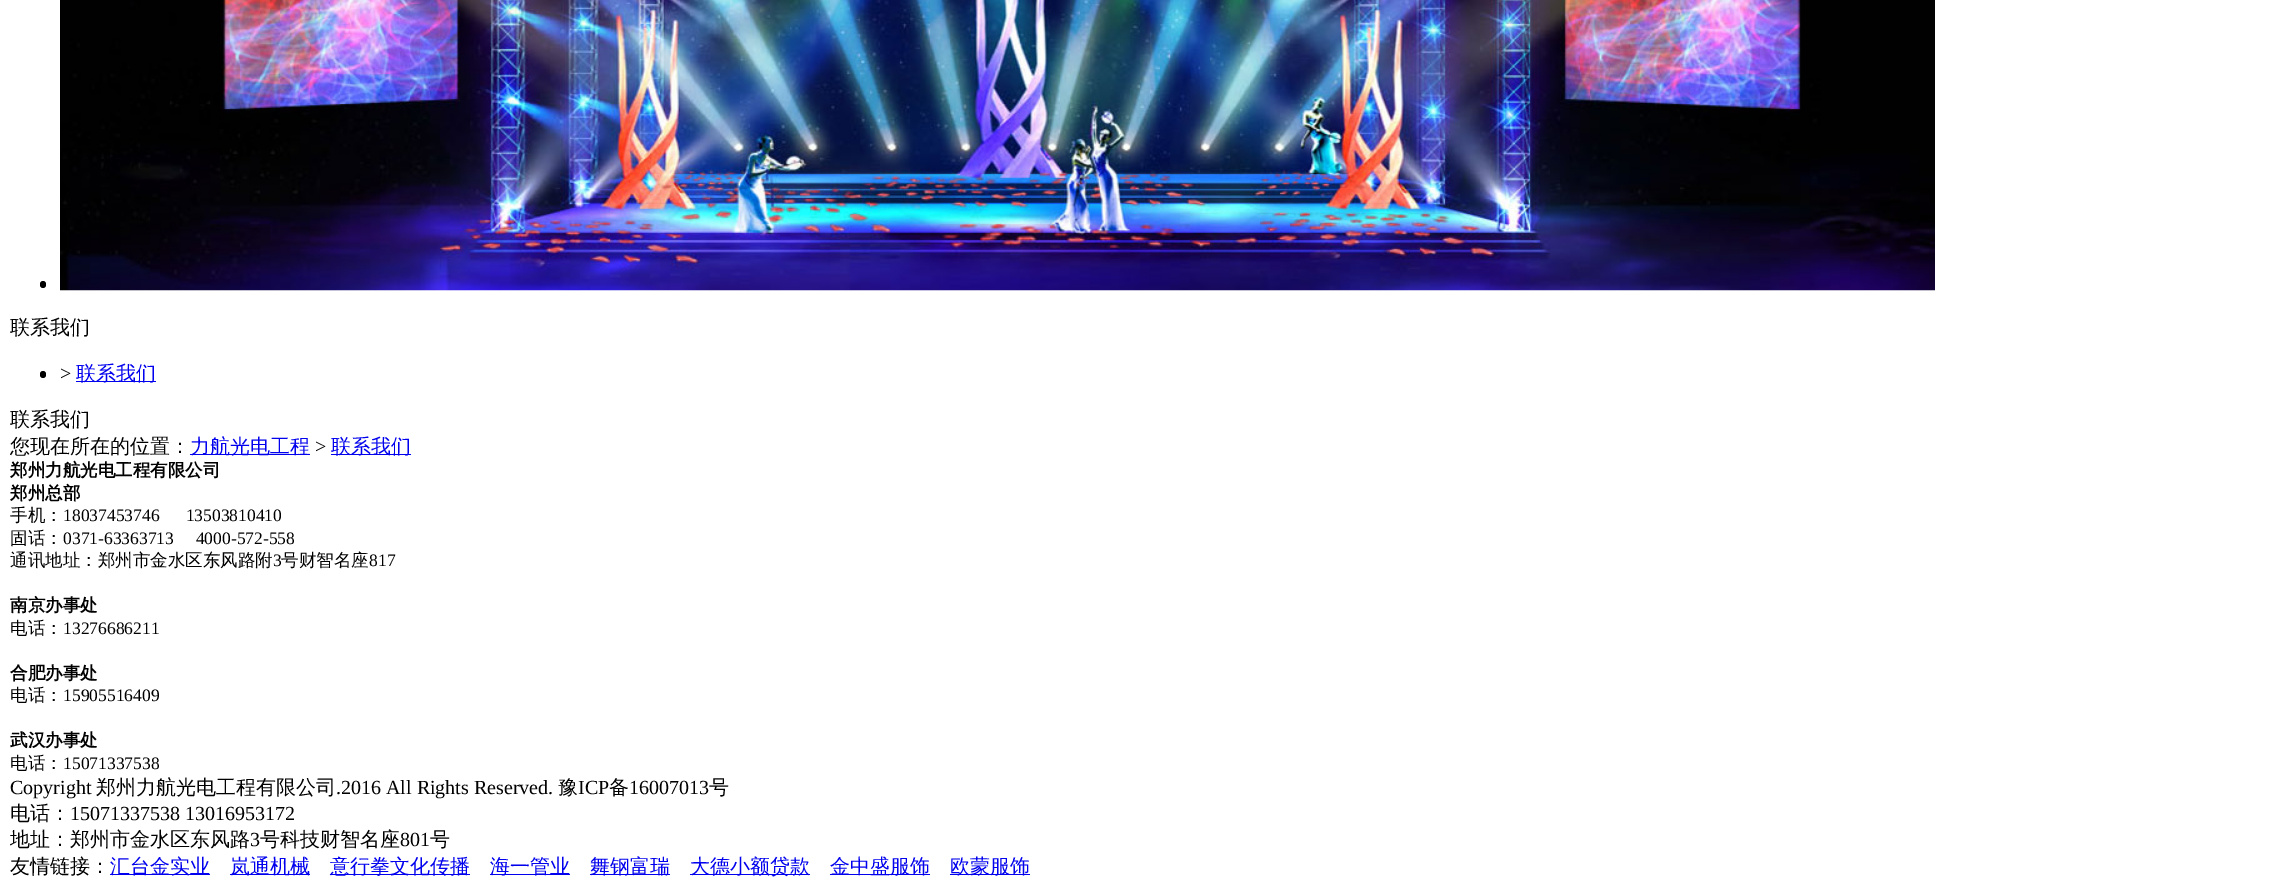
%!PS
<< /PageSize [2286 889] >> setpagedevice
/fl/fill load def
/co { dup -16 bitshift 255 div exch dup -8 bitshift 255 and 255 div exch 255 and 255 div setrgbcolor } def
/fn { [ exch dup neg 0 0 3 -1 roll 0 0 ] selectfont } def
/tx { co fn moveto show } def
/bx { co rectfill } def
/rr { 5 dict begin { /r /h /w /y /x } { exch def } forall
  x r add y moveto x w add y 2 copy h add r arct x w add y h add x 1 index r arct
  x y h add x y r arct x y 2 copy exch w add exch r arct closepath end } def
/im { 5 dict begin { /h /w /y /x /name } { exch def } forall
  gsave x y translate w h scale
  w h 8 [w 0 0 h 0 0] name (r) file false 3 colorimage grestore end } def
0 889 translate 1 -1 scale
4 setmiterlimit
0 0 2286 889 16#FFFFFF bx
16#000000 co
40 281 6 7 3 rr fl
(media/1.raw) 60 0 1875 291 im
40 371 6 7 3 rr fl
76 381 80 1 16#0000EE bx
190 454 120 1 16#0000EE bx
331 454 80 1 16#0000EE bx
110 874 100 1 16#0000EE bx
230 874 80 1 16#0000EE bx
330 874 140 1 16#0000EE bx
490 874 80 1 16#0000EE bx
590 874 80 1 16#0000EE bx
690 874 120 1 16#0000EE bx
830 874 100 1 16#0000EE bx
950 874 80 1 16#0000EE bx
(联系我们) 10 334 /WenQuanYiZenHei-Medium 20 16#000000 tx
(>) 60 380 /LiberationSerif-Regular 20 16#000000 tx
(联系我们) 76 380 /WenQuanYiZenHei-Medium 20 16#0000EE tx
(联系我们) 10 426 /WenQuanYiZenHei-Medium 20 16#000000 tx
(您现在所在的位置：) 10 453 /WenQuanYiZenHei-Medium 20 16#000000 tx
(力航光电工程) 190 453 /WenQuanYiZenHei-Medium 20 16#0000EE tx
(>) 315 453 /LiberationSerif-Regular 20 16#000000 tx
(联系我们) 331 453 /WenQuanYiZenHei-Medium 20 16#0000EE tx
(郑州力航光电工程有限公司) 10 476 /WenQuanYiZenHei-Bold 17.5 16#000000 tx
(郑州总部) 10 499 /WenQuanYiZenHei-Bold 17.5 16#000000 tx
(手机：) 10 521 /WenQuanYiZenHei-Medium 17.5 16#000000 tx
(18037453746      13503810410) 63 521 /LiberationSerif-Regular 17.5 16#000000 tx
(固话：) 10 544 /WenQuanYiZenHei-Medium 17.5 16#000000 tx
(0371-63363713     4000-572-558) 63 544 /LiberationSerif-Regular 17.5 16#000000 tx
(通讯地址：郑州市金水区东风路附) 10 566 /WenQuanYiZenHei-Medium 17.5 16#000000 tx
(3) 273 566 /LiberationSerif-Regular 17.5 16#000000 tx
(号财智名座) 281 566 /WenQuanYiZenHei-Medium 17.5 16#000000 tx
(817) 369 566 /LiberationSerif-Regular 17.5 16#000000 tx
(南京办事处) 10 611 /WenQuanYiZenHei-Bold 17.5 16#000000 tx
(电话：) 10 634 /WenQuanYiZenHei-Medium 17.5 16#000000 tx
(13276686211) 63 634 /LiberationSerif-Regular 17.5 16#000000 tx
(合肥办事处) 10 679 /WenQuanYiZenHei-Bold 17.5 16#000000 tx
(电话：) 10 701 /WenQuanYiZenHei-Medium 17.5 16#000000 tx
(15905516409) 63 701 /LiberationSerif-Regular 17.5 16#000000 tx
(武汉办事处) 10 746 /WenQuanYiZenHei-Bold 17.5 16#000000 tx
(电话：) 10 769 /WenQuanYiZenHei-Medium 17.5 16#000000 tx
(15071337538) 63 769 /LiberationSerif-Regular 17.5 16#000000 tx
(Copyright) 10 794 /LiberationSerif-Regular 20 16#000000 tx
(郑州力航光电工程有限公司) 96 794 /WenQuanYiZenHei-Medium 20 16#000000 tx
(.2016 All Rights Reserved.) 336 794 /LiberationSerif-Regular 20 16#000000 tx
(豫) 558 794 /WenQuanYiZenHei-Medium 20 16#000000 tx
(ICP) 578 794 /LiberationSerif-Regular 20 16#000000 tx
(备) 609 794 /WenQuanYiZenHei-Medium 20 16#000000 tx
(16007013) 629 794 /LiberationSerif-Regular 20 16#000000 tx
(号) 709 794 /WenQuanYiZenHei-Medium 20 16#000000 tx
(电话：) 10 820 /WenQuanYiZenHei-Medium 20 16#000000 tx
(15071337538 13016953172) 70 820 /LiberationSerif-Regular 20 16#000000 tx
(地址：郑州市金水区东风路) 10 846 /WenQuanYiZenHei-Medium 20 16#000000 tx
(3) 250 846 /LiberationSerif-Regular 20 16#000000 tx
(号科技财智名座) 260 846 /WenQuanYiZenHei-Medium 20 16#000000 tx
(801) 400 846 /LiberationSerif-Regular 20 16#000000 tx
(号) 430 846 /WenQuanYiZenHei-Medium 20 16#000000 tx
(友情链接：) 10 873 /WenQuanYiZenHei-Medium 20 16#000000 tx
(汇台金实业) 110 873 /WenQuanYiZenHei-Medium 20 16#0000EE tx
(岚通机械) 230 873 /WenQuanYiZenHei-Medium 20 16#0000EE tx
(意行拳文化传播) 330 873 /WenQuanYiZenHei-Medium 20 16#0000EE tx
(海一管业) 490 873 /WenQuanYiZenHei-Medium 20 16#0000EE tx
(舞钢富瑞) 590 873 /WenQuanYiZenHei-Medium 20 16#0000EE tx
(大德小额贷款) 690 873 /WenQuanYiZenHei-Medium 20 16#0000EE tx
(金中盛服饰) 830 873 /WenQuanYiZenHei-Medium 20 16#0000EE tx
(欧蒙服饰) 950 873 /WenQuanYiZenHei-Medium 20 16#0000EE tx
showpage
